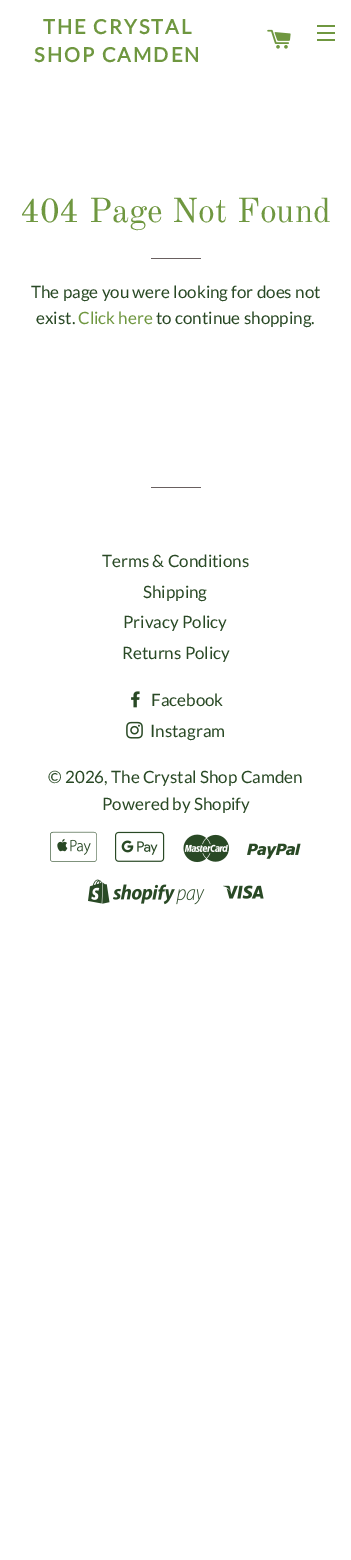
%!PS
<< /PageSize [351 1560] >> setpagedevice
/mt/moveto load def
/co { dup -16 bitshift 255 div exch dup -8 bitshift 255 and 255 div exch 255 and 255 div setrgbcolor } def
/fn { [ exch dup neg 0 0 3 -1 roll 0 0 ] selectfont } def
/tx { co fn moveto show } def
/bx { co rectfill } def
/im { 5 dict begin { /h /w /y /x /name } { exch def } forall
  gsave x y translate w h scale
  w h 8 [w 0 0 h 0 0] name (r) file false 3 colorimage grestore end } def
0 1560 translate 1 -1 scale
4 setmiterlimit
0 0 351 1560 16#FFFFFF bx
(media/1.raw) 267 29 24 20 im
317 25 18 2 16#6F9740 bx
317 32 18 2 16#6F9740 bx
317 39 18 2 16#6F9740 bx
151 258 50 1 16#696060 bx
151 487 50 1 16#696060 bx
(media/2.raw) 131 691 9 17 im
(media/3.raw) 126 721 17 18 im
(media/4.raw) 50 831 47 31 im
(media/5.raw) 115 831 50 31 im
(media/6.raw) 183 834 46 29 im
(media/7.raw) 247 843 54 16 im
(media/8.raw) 88 879 117 26 im
(media/9.raw) 223 885 41 14 im
/Lato-Bold 20 fn
16#6F9740 co
43 34 mt 2 0 (THE CRYSTAL) ashow
34 62 mt 2 0 (SHOP CAMDEN) ashow
(404 Page Not Found) 20 222 /OldStandardTT-Regular 34 16#6F9740 tx
(The page you were looking for does not) 31 298 /Lato-Regular 17 16#294925 tx
(exist.) 36 324 /Lato-Regular 17 16#294925 tx
(Click here) 78 324 /Lato-Regular 17 16#6F9740 tx
(to continue shopping.) 156 324 /Lato-Regular 17 16#294925 tx
(Terms & Conditions) 102 567 /Lato-Regular 17 16#294925 tx
(Shipping) 143 598 /Lato-Regular 17 16#294925 tx
(Privacy Policy) 123 628 /Lato-Regular 17 16#294925 tx
(Returns Policy) 122 659 /Lato-Regular 17 16#294925 tx
(Facebook) 151 706 /Lato-Regular 17 16#294925 tx
(Instagram) 150 737 /Lato-Regular 17 16#294925 tx
(© 2026, The Crystal Shop Camden) 48 783 /Lato-Regular 17 16#294925 tx
(Powered by Shopify) 102 810 /Lato-Regular 17 16#294925 tx
showpage
